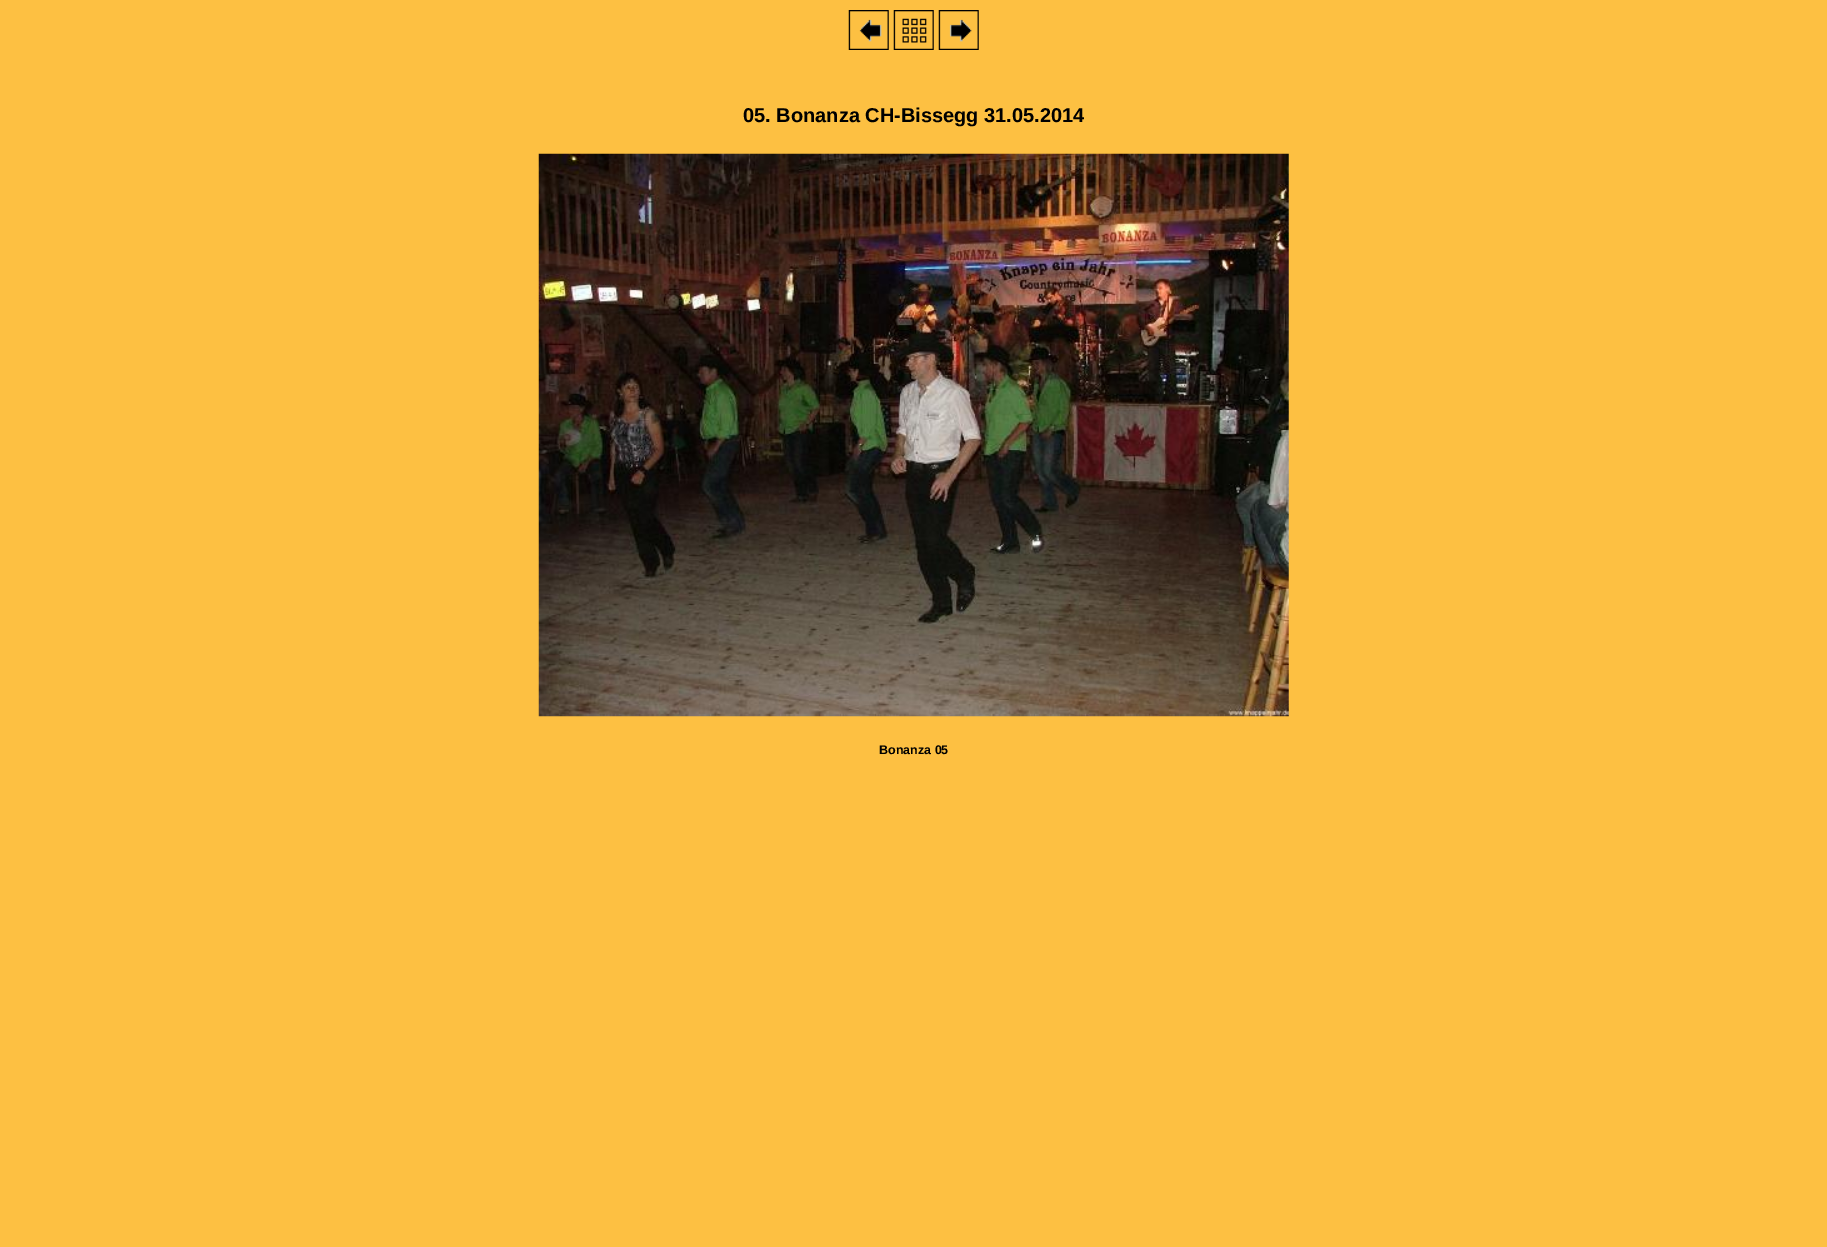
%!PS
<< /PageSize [1827 1247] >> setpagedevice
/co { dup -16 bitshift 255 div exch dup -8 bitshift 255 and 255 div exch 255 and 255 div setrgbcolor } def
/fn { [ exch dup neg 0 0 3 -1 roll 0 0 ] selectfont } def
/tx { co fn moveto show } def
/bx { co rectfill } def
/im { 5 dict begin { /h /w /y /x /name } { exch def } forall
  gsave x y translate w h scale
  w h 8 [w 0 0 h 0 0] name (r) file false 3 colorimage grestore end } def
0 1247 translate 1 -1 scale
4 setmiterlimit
0 0 1827 1247 16#FDC042 bx
(media/1.raw) 848 10 41 40 im
(media/2.raw) 893 10 41 40 im
(media/3.raw) 938 10 41 40 im
(media/4.raw) 538 153 751 564 im
(05. Bonanza CH-Bissegg 31.05.2014) 743 122 /LiberationSans-Bold 20 16#000000 tx
(Bonanza 05) 879 754 /LiberationSans-Bold 12.5 16#000000 tx
showpage
